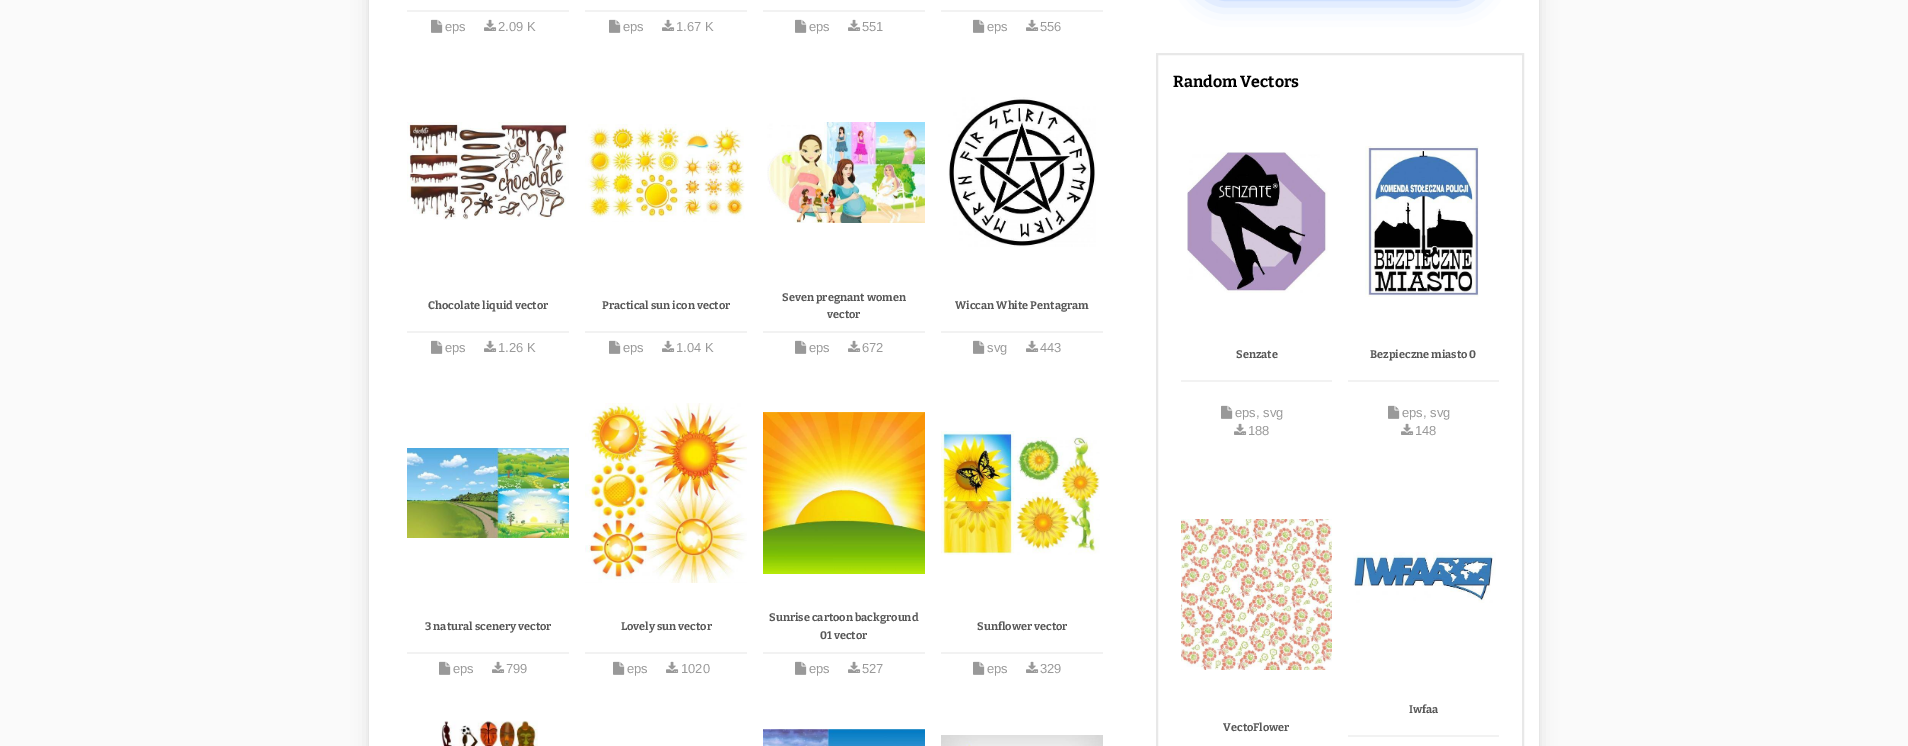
%!PS
<< /PageSize [1908 746] /PageUsesTransparency true >> setpagedevice
/lw/setlinewidth load def
/co { dup -16 bitshift 255 div exch dup -8 bitshift 255 and 255 div exch 255 and 255 div setrgbcolor } def
/fn { [ exch dup neg 0 0 3 -1 roll 0 0 ] selectfont } def
/tx { co fn moveto show } def
/bx { co rectfill } def
/al { dup .setfillconstantalpha .setstrokeconstantalpha } def
/rr { 5 dict begin { /r /h /w /y /x } { exch def } forall
  x r add y moveto x w add y 2 copy h add r arct x w add y h add x 1 index r arct
  x y h add x y r arct x y 2 copy exch w add exch r arct closepath end } def
/sh { 12 dict begin { /a /b /q /h /w /y /x } { exch def } forall gsave /was 0 def
  9 -2 -9 { dup b mul 4 div /e exch def 1 sub .425 mul 2.718 exch exp 1 add a .99 .min exch div /now exch def
    1 1 now sub 1 was sub div sub al /was now def
    w h .min e 2 mul add 0 gt { x e sub y e sub w e 2 mul add h e 2 mul add
      q e add b .6 mul add w h .min 2 div e add .min 0 .max rr fill } if } for grestore end } def
/im { 5 dict begin { /h /w /y /x /name } { exch def } forall
  gsave x y translate w h scale
  w h 8 [w 0 0 h 0 0] name (r) file false 3 colorimage grestore end } def
0 .pushpdf14devicefilter
0 746 translate 1 -1 scale
4 setmiterlimit
0 0 1908 746 16#FAFAFA bx
16#000000 co
368 -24 1172 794 0 8 .1 sh
369 0 1170 746 16#FFFFFF bx
1539 0 1 746 16#E6E6E6 bx
368 0 1 746 16#E6E6E6 bx
407 10 162 2 16#F2F2F2 bx
(media/1.raw) 431 19 12 14 im
(media/2.raw) 484 19 13 12 im
585 10 162 2 16#F2F2F2 bx
(media/1.raw) 609 19 12 14 im
(media/2.raw) 662 19 13 12 im
763 10 162 2 16#F2F2F2 bx
(media/1.raw) 795 19 12 14 im
(media/2.raw) 848 19 13 12 im
941 10 162 2 16#F2F2F2 bx
(media/1.raw) 973 19 12 14 im
(media/2.raw) 1026 19 13 12 im
(media/3.raw) 407 122 162 98 im
407 331 162 2 16#F2F2F2 bx
(media/1.raw) 431 340 12 14 im
(media/2.raw) 484 340 13 12 im
(media/4.raw) 585 124 160 98 im
585 331 162 2 16#F2F2F2 bx
(media/1.raw) 609 340 12 14 im
(media/2.raw) 662 340 13 12 im
(media/5.raw) 767 122 158 101 im
763 331 162 2 16#F2F2F2 bx
(media/1.raw) 795 340 12 14 im
(media/2.raw) 848 340 13 12 im
(media/6.raw) 948 97 148 150 im
941 331 162 2 16#F2F2F2 bx
(media/1.raw) 973 340 12 14 im
(media/2.raw) 1026 340 13 12 im
(media/7.raw) 407 448 162 90 im
407 652 162 2 16#F2F2F2 bx
(media/1.raw) 439 661 12 14 im
(media/2.raw) 492 661 13 12 im
(media/8.raw) 585 403 162 180 im
585 652 162 2 16#F2F2F2 bx
(media/1.raw) 613 661 12 14 im
(media/2.raw) 666 661 13 12 im
(media/9.raw) 763 412 162 162 im
763 652 162 2 16#F2F2F2 bx
(media/1.raw) 795 661 12 14 im
(media/2.raw) 848 661 13 12 im
(media/10.raw) 941 431 159 124 im
941 652 162 2 16#F2F2F2 bx
(media/1.raw) 973 661 12 14 im
(media/2.raw) 1026 661 13 12 im
(media/11.raw) 440 720 98 26 im
(media/12.raw) 763 729 162 17 im
(media/13.raw) 941 735 162 11 im
16#A1C3FE co
1199 -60 282 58 21 13 1 sh
16#E8E8E8 co
2 lw
1157 54 366 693 rectstroke
(media/14.raw) 1187 152 141 141 im
1181 380 151 2 16#F2F2F2 bx
(media/1.raw) 1221 405 12 14 im
(media/2.raw) 1234 423 13 12 im
(media/15.raw) 1365 146 114 151 im
1348 380 151 2 16#F2F2F2 bx
(media/1.raw) 1388 405 12 14 im
(media/2.raw) 1401 423 13 12 im
(media/16.raw) 1353 552 143 51 im
1348 735 151 2 16#F2F2F2 bx
(media/17.raw) 1181 519 151 151 im
(eps) 445 31 /LiberationSans-Regular 13 16#999999 tx
(2.09 K) 498 31 /LiberationSans-Regular 13 16#999999 tx
(eps) 623 31 /LiberationSans-Regular 13 16#999999 tx
(1.67 K) 676 31 /LiberationSans-Regular 13 16#999999 tx
(eps) 809 31 /LiberationSans-Regular 13 16#999999 tx
(551) 862 31 /LiberationSans-Regular 13 16#999999 tx
(eps) 987 31 /LiberationSans-Regular 13 16#999999 tx
(556) 1040 31 /LiberationSans-Regular 13 16#999999 tx
(Chocolate liquid vector) 428 309 /Bitter-Bold 11 16#585858 tx
(eps) 445 352 /LiberationSans-Regular 13 16#999999 tx
(1.26 K) 498 352 /LiberationSans-Regular 13 16#999999 tx
(Practical sun icon vector) 602 309 /Bitter-Bold 11 16#585858 tx
(eps) 623 352 /LiberationSans-Regular 13 16#999999 tx
(1.04 K) 676 352 /LiberationSans-Regular 13 16#999999 tx
(Seven pregnant women) 782 301 /Bitter-Bold 11 16#585858 tx
(vector) 827 318 /Bitter-Bold 11 16#585858 tx
(eps) 809 352 /LiberationSans-Regular 13 16#999999 tx
(672) 862 352 /LiberationSans-Regular 13 16#999999 tx
(Wiccan White Pentagram) 955 309 /Bitter-Bold 11 16#585858 tx
(svg) 987 352 /LiberationSans-Regular 13 16#999999 tx
(443) 1040 352 /LiberationSans-Regular 13 16#999999 tx
(3 natural scenery vector) 425 630 /Bitter-Bold 11 16#585858 tx
(eps) 453 673 /LiberationSans-Regular 13 16#999999 tx
(799) 506 673 /LiberationSans-Regular 13 16#999999 tx
(Lovely sun vector) 621 630 /Bitter-Bold 11 16#585858 tx
(eps) 627 673 /LiberationSans-Regular 13 16#999999 tx
(1020) 681 673 /LiberationSans-Regular 13 16#999999 tx
(Sunrise cartoon background) 769 621 /Bitter-Bold 11 16#585858 tx
(01 vector) 820 639 /Bitter-Bold 11 16#585858 tx
(eps) 809 673 /LiberationSans-Regular 13 16#999999 tx
(527) 862 673 /LiberationSans-Regular 13 16#999999 tx
(Sunflower vector) 977 630 /Bitter-Bold 11 16#585858 tx
(eps) 987 673 /LiberationSans-Regular 13 16#999999 tx
(329) 1040 673 /LiberationSans-Regular 13 16#999999 tx
(Random Vectors) 1173 87 /Bitter-Bold 16 16#000000 tx
(Senzate) 1236 358 /Bitter-Bold 11 16#585858 tx
(eps, svg) 1235 417 /LiberationSans-Regular 13 16#999999 tx
(188) 1248 435 /LiberationSans-Regular 13 16#999999 tx
(Bezpieczne miasto 0) 1370 358 /Bitter-Bold 11 16#585858 tx
(eps, svg) 1402 417 /LiberationSans-Regular 13 16#999999 tx
(148) 1415 435 /LiberationSans-Regular 13 16#999999 tx
(Iwfaa) 1409 713 /Bitter-Bold 11 16#585858 tx
(VectoFlower) 1223 731 /Bitter-Bold 11 16#585858 tx
.poppdf14devicefilter showpage
